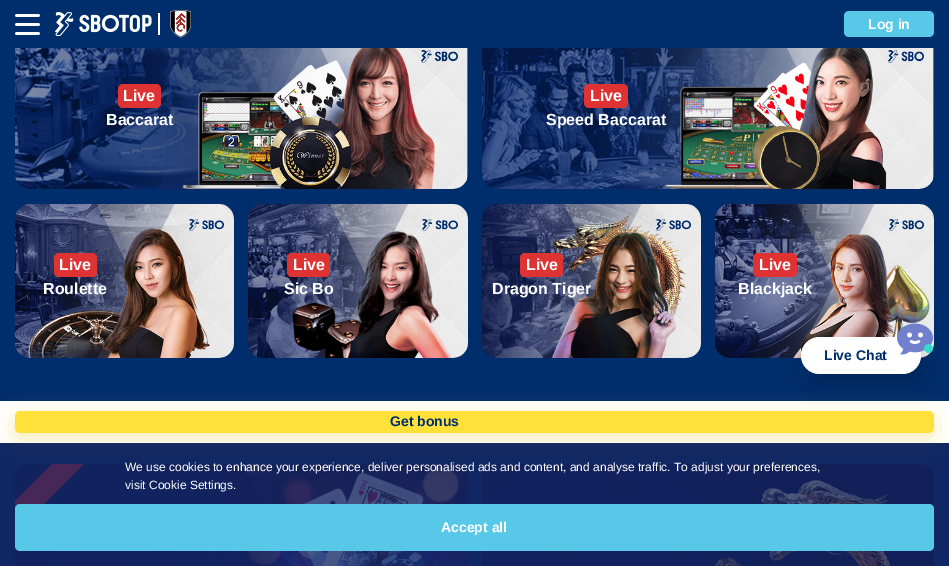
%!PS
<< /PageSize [949 566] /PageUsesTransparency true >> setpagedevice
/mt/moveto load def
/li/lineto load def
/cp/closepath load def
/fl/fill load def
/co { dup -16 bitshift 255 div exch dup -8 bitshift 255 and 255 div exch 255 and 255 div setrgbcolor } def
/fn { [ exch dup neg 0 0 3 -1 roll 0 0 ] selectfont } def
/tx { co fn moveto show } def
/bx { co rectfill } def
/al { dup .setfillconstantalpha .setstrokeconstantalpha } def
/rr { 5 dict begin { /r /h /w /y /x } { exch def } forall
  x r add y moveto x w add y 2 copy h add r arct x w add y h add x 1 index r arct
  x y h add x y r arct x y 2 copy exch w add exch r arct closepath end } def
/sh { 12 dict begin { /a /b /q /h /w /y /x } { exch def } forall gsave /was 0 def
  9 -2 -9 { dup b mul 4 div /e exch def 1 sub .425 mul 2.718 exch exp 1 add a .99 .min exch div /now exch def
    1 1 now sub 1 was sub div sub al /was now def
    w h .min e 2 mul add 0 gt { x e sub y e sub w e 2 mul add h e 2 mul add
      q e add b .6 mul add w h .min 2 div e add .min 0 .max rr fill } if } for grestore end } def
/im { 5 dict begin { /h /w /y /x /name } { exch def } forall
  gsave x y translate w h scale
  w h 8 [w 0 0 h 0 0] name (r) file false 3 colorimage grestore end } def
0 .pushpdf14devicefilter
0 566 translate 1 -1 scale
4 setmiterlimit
0 0 949 566 16#002E6C bx
(media/1.raw) 15 14 25 21 im
(media/2.raw) 55 12 97 24 im
158 13 2 22 16#FFFFFF bx
(media/3.raw) 170 10 21 28 im
16#57C8E7 co
844 11 90 26 5 rr fl
(media/4.raw) 15 48 453 141 im
(media/5.raw) 421 50 37 13 im
16#DF3333 co
118 84 43 24 5 rr fl
(media/6.raw) 482 48 452 141 im
(media/7.raw) 888 50 36 13 im
584 84 44 24 5 rr fl
(media/8.raw) 15 204 219 154 im
(media/9.raw) 189 219 35 12 im
54 253 43 24 5 rr fl
(media/10.raw) 248 204 220 154 im
(media/11.raw) 422 219 36 12 im
287 253 43 24 5 rr fl
(media/12.raw) 482 204 219 154 im
(media/13.raw) 656 219 35 12 im
520 253 43 24 5 rr fl
(media/14.raw) 715 204 219 154 im
(media/15.raw) 889 219 35 12 im
753 253 44 24 5 rr fl
(media/16.raw) 15 464 453 102 im
84 464 mt 15 533 li 15 501 li 52 464 li cp fl
(media/17.raw) 482 464 452 102 im
0 401 949 42 16#FFFFFF bx
16#E5C714 co
15 417 919 22 5 11 .33 sh
16#FFE13A co
15 411 919 22 5 rr fl
16#000000 co
806 348 120 37 18.5 11 .16 sh
16#FFFFFF co
801 337 120 37 18.5 rr fl
(media/18.raw) 897 323 36 32 im
0.77 al
0 443 949 123 16#162560 bx
1 al
16#57C8E7 co
15 504 919 47 5 rr fl
(Log in) 868 29 /LiberationSans-Bold 14 16#FFFFFF tx
(Live) 123 101 /LiberationSans-Bold 16 16#FFFFFF tx
(Baccarat) 106 125 /LiberationSans-Bold 16 16#FFFFFF tx
(Live) 590 101 /LiberationSans-Bold 16 16#FFFFFF tx
(Speed Baccarat) 546 125 /LiberationSans-Bold 16 16#FFFFFF tx
(Live) 59 270 /LiberationSans-Bold 16 16#FFFFFF tx
(Roulette) 43 294 /LiberationSans-Bold 16 16#FFFFFF tx
(Live) 293 270 /LiberationSans-Bold 16 16#FFFFFF tx
(Sic Bo) 284 294 /LiberationSans-Bold 16 16#FFFFFF tx
(Live) 526 270 /LiberationSans-Bold 16 16#FFFFFF tx
(Dragon Tiger) 492 294 /LiberationSans-Bold 16 16#FFFFFF tx
(Live) 759 270 /LiberationSans-Bold 16 16#FFFFFF tx
(Blackjack) 738 294 /LiberationSans-Bold 16 16#FFFFFF tx
(Live Chat) 824 360 /LiberationSans-Bold 14 16#002E6C tx
(Get bonus) 390 426 /LiberationSans-Bold 14 16#002E6C tx
(We use cookies to enhance your experience, deliver personalised ads and content, and analyse traffic. To adjust your preferences,) 125 471 /LiberationSans-Regular 12 16#FFFFFF tx
(visit Cookie Settings.) 125 489 /LiberationSans-Regular 12 16#FFFFFF tx
(Accept all) 441 532 /LiberationSans-Bold 14 16#FFFFFF tx
.poppdf14devicefilter showpage
